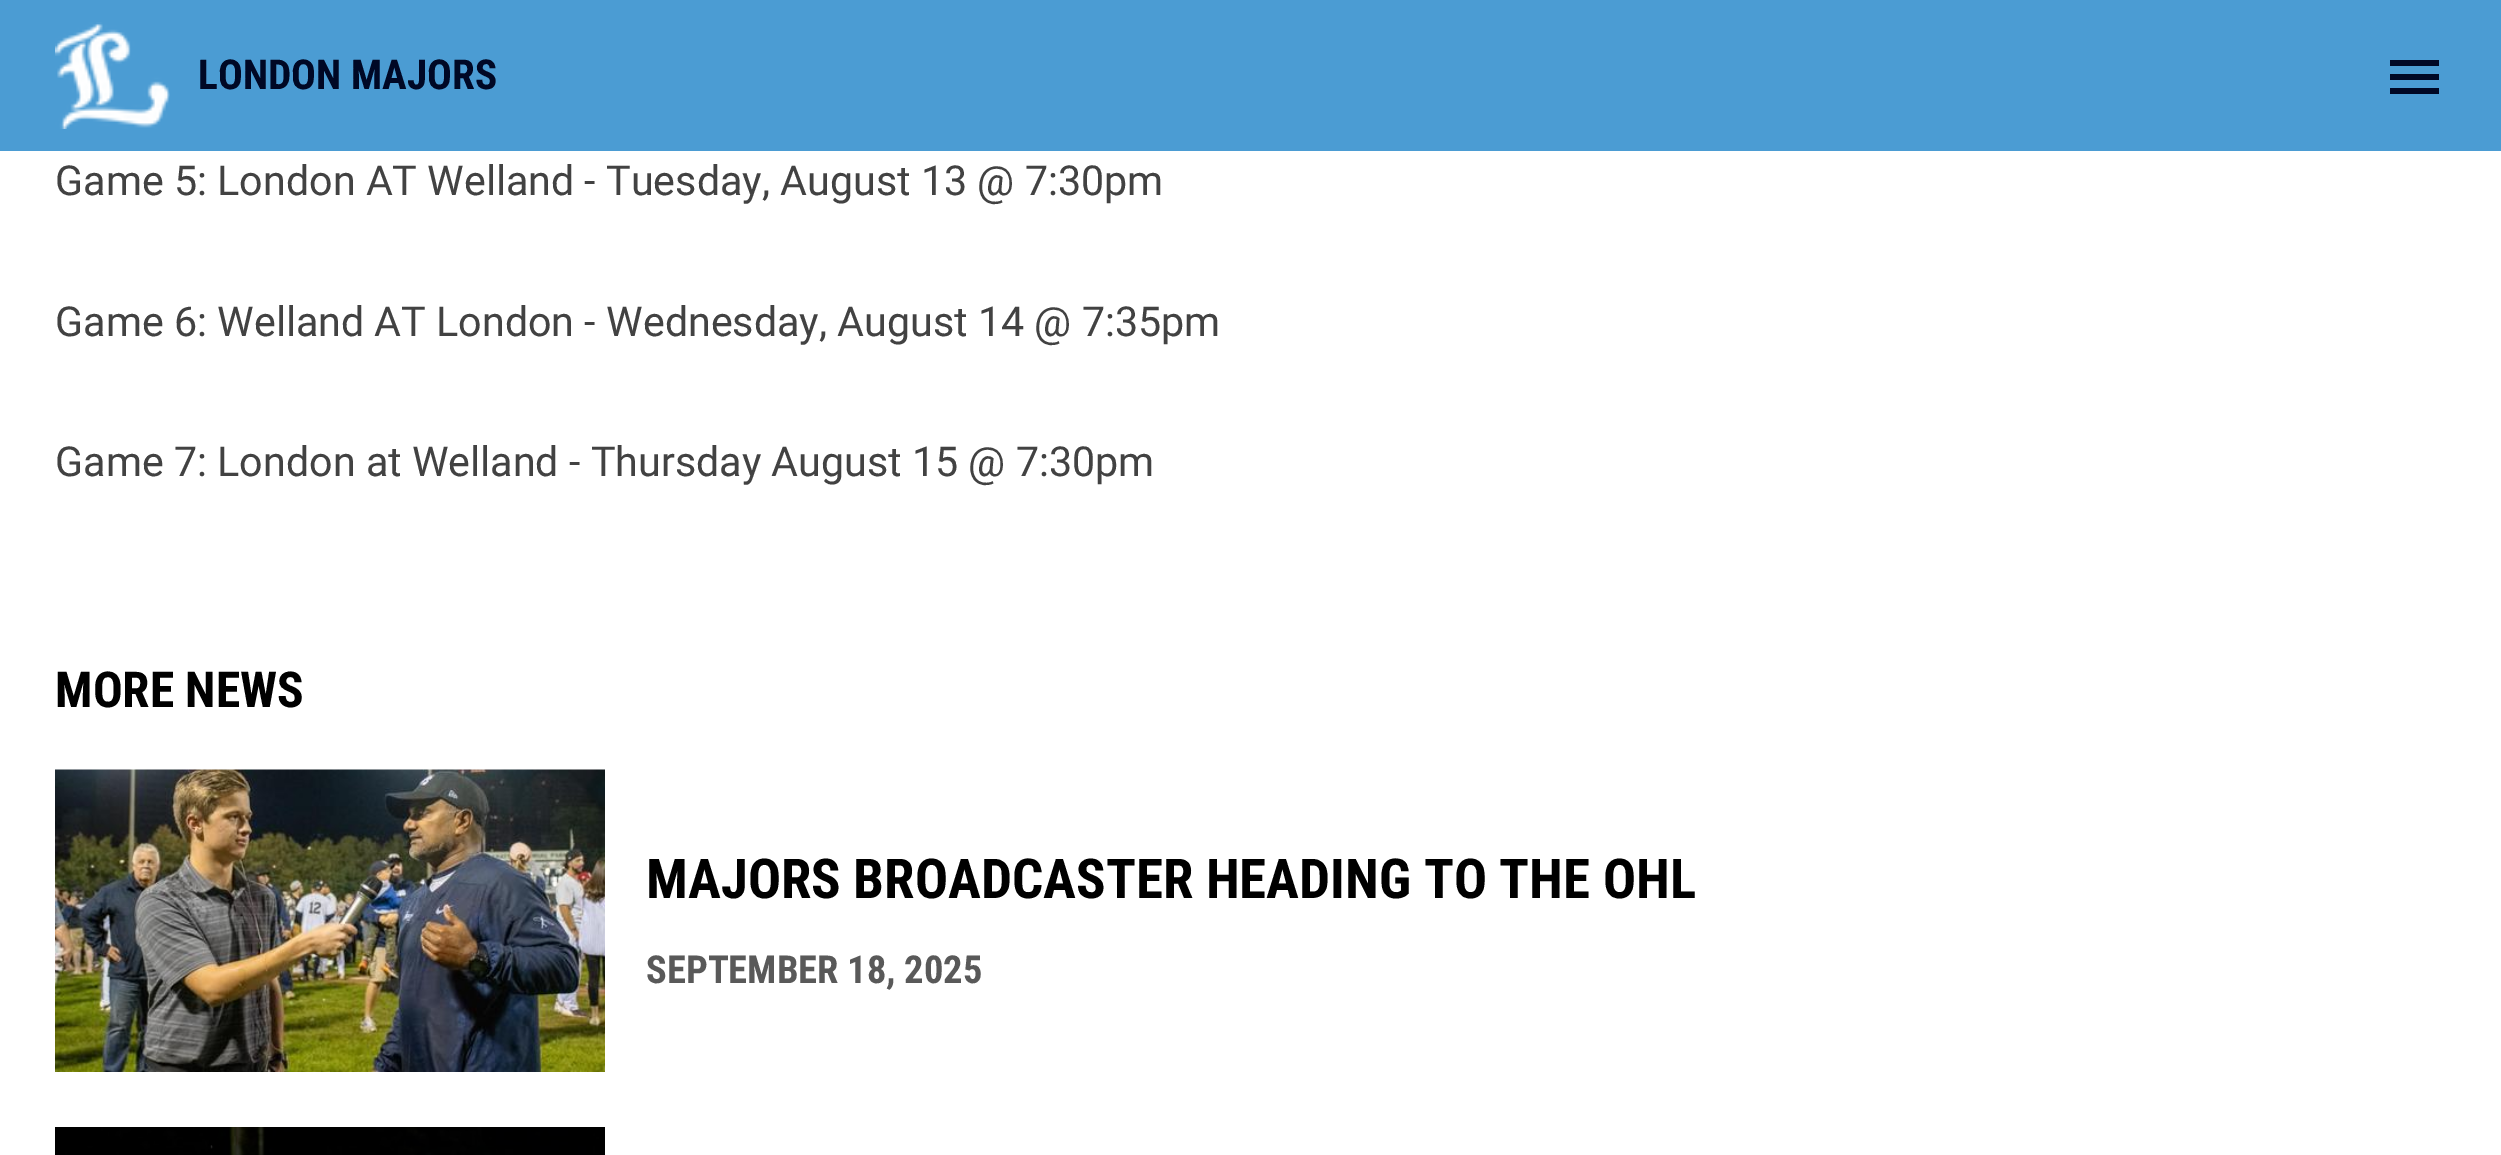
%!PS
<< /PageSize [2501 1155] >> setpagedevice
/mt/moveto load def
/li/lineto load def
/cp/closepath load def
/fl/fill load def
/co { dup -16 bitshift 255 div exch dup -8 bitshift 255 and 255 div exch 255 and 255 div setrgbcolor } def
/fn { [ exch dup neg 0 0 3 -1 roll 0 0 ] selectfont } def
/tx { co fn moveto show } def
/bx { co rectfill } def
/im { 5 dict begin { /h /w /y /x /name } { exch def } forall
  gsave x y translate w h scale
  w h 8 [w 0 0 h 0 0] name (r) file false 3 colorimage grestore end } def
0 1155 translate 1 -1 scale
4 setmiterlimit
0 0 2501 1155 16#FFFFFF bx
0 0 2501 151 16#4B9CD3 bx
(media/1.raw) 55 22 115 107 im
16#000825 co
2390 60 mt 2439 60 li 2439 66 li 2390 66 li cp 2390 80 mt 2390 74 li 2439 74 li 2439 80 li cp 2390 94 mt 2390 88 li 2439 88 li 2439 94 li cp fl
(media/2.raw) 55 769 550 303 im
(media/3.raw) 55 1127 550 28 im
(LONDON MAJORS) 198 89 /RobotoCondensed-Bold 41.25 16#000825 tx
(Game 5: London AT Welland - Tuesday, August 13 @ 7:30pm) 55 195 /Roboto-Regular 41.25 16#424242 tx
(Game 6: Welland AT London - Wednesday, August 14 @ 7:35pm) 55 336 /Roboto-Regular 41.25 16#424242 tx
(Game 7: London at Welland - Thursday August 15 @ 7:30pm) 55 476 /Roboto-Regular 41.25 16#424242 tx
(MORE NEWS) 55 707 /RobotoCondensed-Bold 49.5 16#000000 tx
(MAJORS BROADCASTER HEADING TO THE OHL) 646 898 /RobotoCondensed-Bold 55 16#000000 tx
(SEPTEMBER 18, 2025) 646 983 /RobotoCondensed-Bold 38.5 16#595959 tx
showpage
